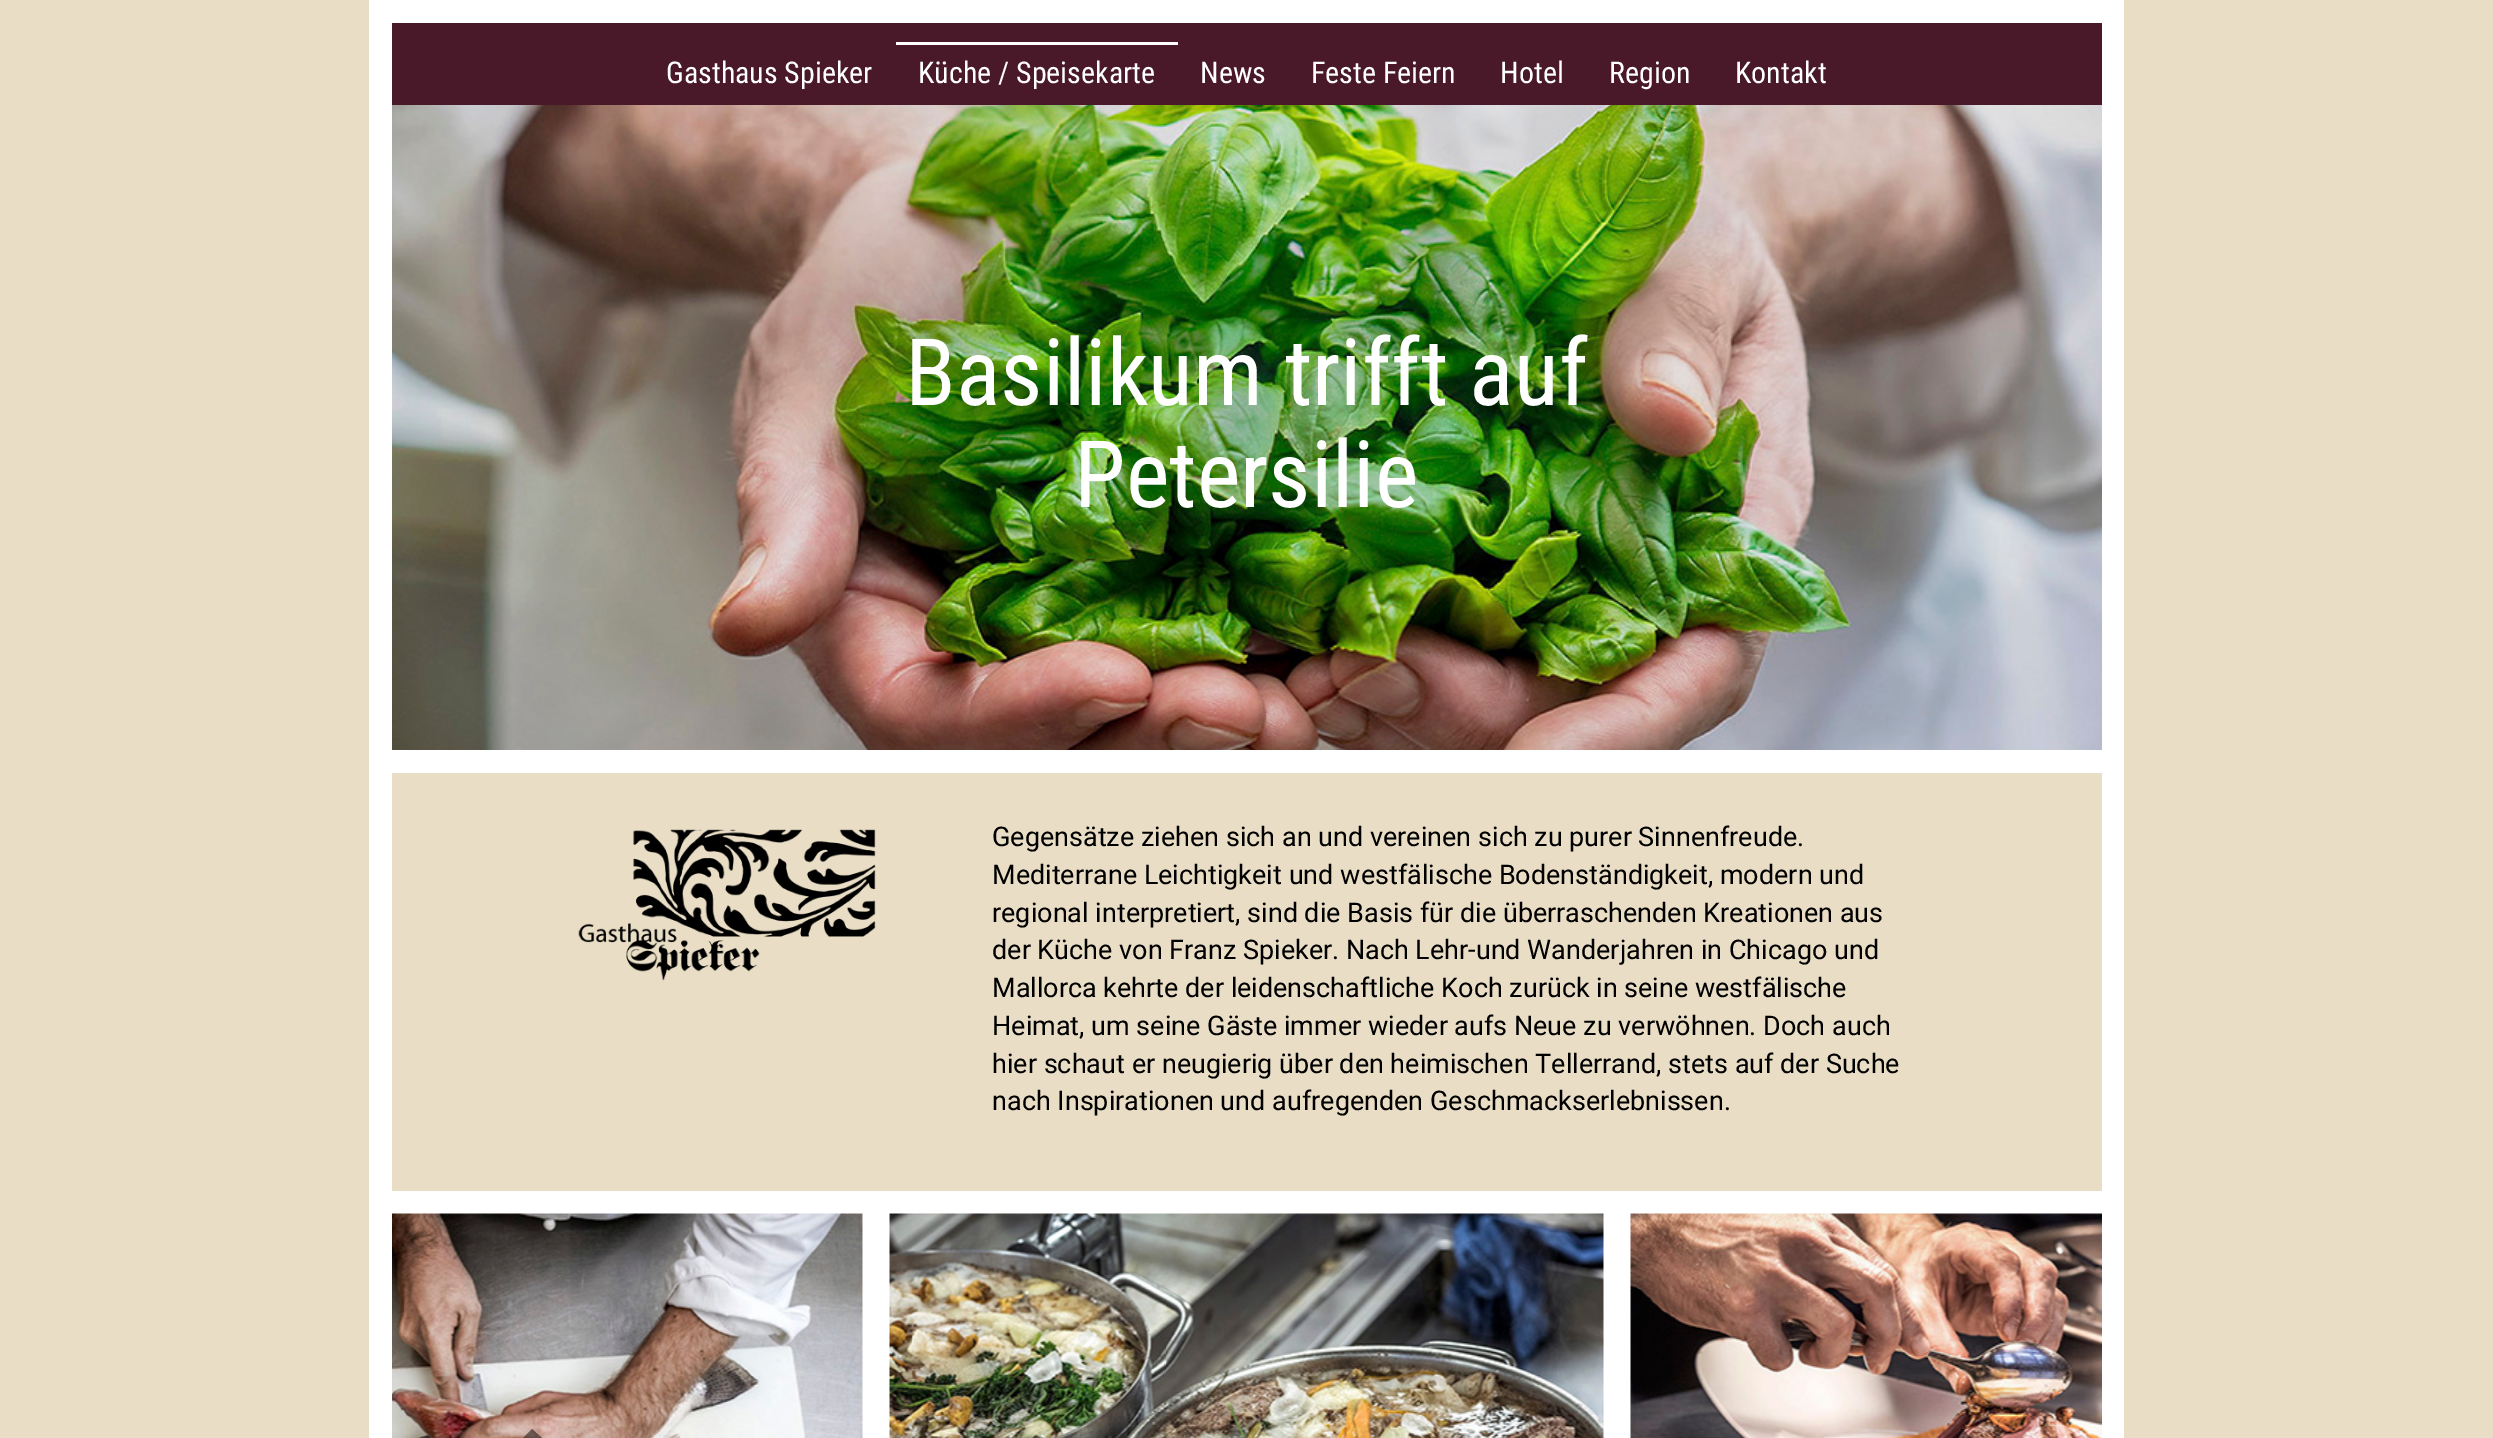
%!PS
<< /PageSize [2493 1438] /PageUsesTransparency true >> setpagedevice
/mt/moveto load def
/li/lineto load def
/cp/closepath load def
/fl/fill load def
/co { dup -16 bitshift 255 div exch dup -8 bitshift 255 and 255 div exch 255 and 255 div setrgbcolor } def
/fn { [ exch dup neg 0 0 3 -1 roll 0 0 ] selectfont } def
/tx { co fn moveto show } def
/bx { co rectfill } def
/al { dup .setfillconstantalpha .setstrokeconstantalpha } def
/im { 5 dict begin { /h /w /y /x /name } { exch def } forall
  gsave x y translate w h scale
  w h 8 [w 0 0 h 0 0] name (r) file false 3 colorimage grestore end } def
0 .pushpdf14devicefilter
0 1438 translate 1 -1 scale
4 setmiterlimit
0 0 2493 1438 16#E9DEC5 bx
(media/1.raw) 392 105 1710 645 im
392 0 1710 23 16#FFFFFF bx
2102 0 22 1191 16#FFFFFF bx
369 0 23 1191 16#FFFFFF bx
392 23 1710 82 16#49192A bx
896 42 282 3 16#FFFFFF bx
392 750 1710 23 16#FFFFFF bx
(media/2.raw) 578 829 298 152 im
369 1191 1755 247 16#FFFFFF bx
(media/3.raw) 392 1213 471 225 im
(media/4.raw) 889 1213 715 225 im
(media/5.raw) 1630 1213 472 225 im
0.5 al
16#000000 co
542 1438 mt 525 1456 li 542 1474 li 532 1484 li 505 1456 li 532 1429 li cp fl
1990 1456 mt 1962 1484 li 1952 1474 li 1970 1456 li 1952 1438 li 1962 1429 li cp fl
1 al
(Gasthaus Spieker) 666 83 /RobotoCondensed-Regular 30 16#FFFFFF tx
(Küche / Speisekarte) 918 83 /RobotoCondensed-Regular 30 16#FFFFFF tx
(News) 1200 83 /RobotoCondensed-Regular 30 16#FFFFFF tx
(Feste Feiern) 1311 83 /RobotoCondensed-Regular 30 16#FFFFFF tx
(Hotel) 1500 83 /RobotoCondensed-Regular 30 16#FFFFFF tx
(Region) 1609 83 /RobotoCondensed-Regular 30 16#FFFFFF tx
(Kontakt) 1735 83 /RobotoCondensed-Regular 30 16#FFFFFF tx
(Basilikum trifft auf) 905 405 /RobotoCondensed-Regular 93 16#FFFFFF tx
(Petersilie) 1074 507 /RobotoCondensed-Regular 93 16#FFFFFF tx
(Gegensätze ziehen sich an und vereinen sich zu purer Sinnenfreude.) 992 846 /Roboto-Regular 27 16#000000 tx
(Mediterrane Leichtigkeit und westfälische Bodenständigkeit, modern und) 992 884 /Roboto-Regular 27 16#000000 tx
(regional interpretiert, sind die Basis für die überraschenden Kreationen aus) 992 922 /Roboto-Regular 27 16#000000 tx
(der Küche von Franz Spieker. Nach Lehr-und Wanderjahren in Chicago und) 992 959 /Roboto-Regular 27 16#000000 tx
(Mallorca kehrte der leidenschaftliche Koch zurück in seine westfälische) 992 997 /Roboto-Regular 27 16#000000 tx
(Heimat, um seine Gäste immer wieder aufs Neue zu verwöhnen. Doch auch) 992 1035 /Roboto-Regular 27 16#000000 tx
(hier schaut er neugierig über den heimischen Tellerrand, stets auf der Suche) 992 1073 /Roboto-Regular 27 16#000000 tx
(nach Inspirationen und aufregenden Geschmackserlebnissen.) 992 1110 /Roboto-Regular 27 16#000000 tx
.poppdf14devicefilter showpage
